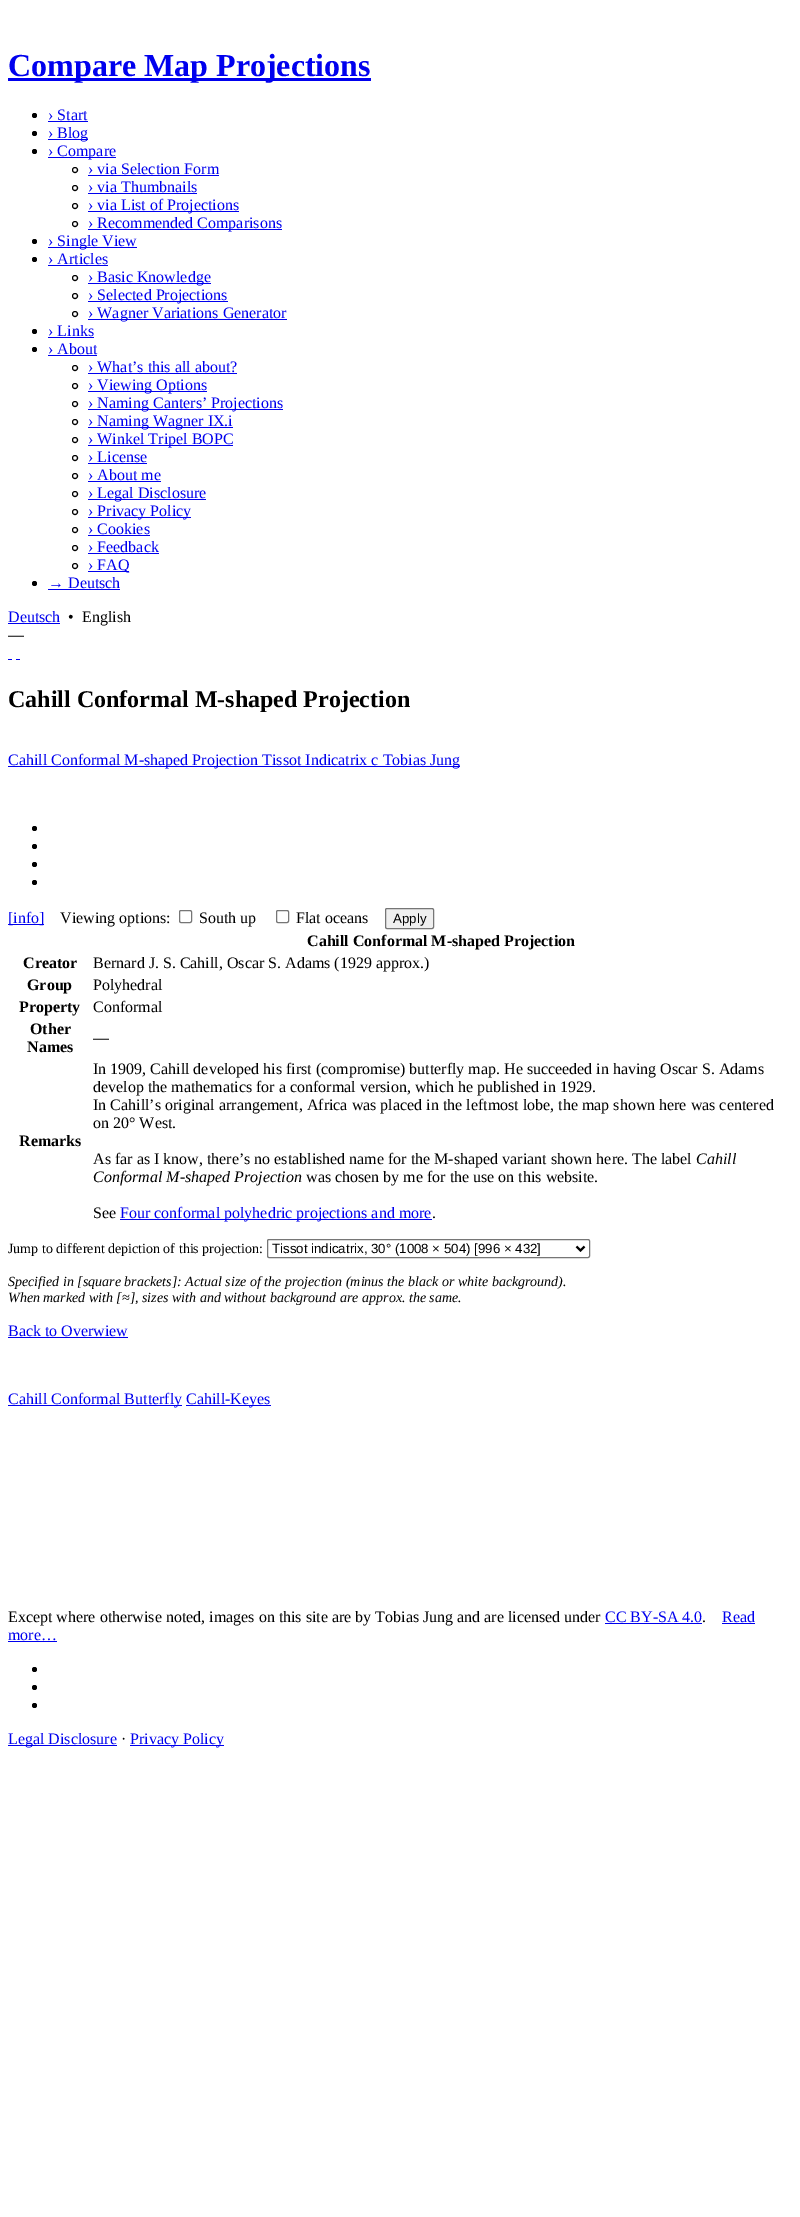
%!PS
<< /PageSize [800 2217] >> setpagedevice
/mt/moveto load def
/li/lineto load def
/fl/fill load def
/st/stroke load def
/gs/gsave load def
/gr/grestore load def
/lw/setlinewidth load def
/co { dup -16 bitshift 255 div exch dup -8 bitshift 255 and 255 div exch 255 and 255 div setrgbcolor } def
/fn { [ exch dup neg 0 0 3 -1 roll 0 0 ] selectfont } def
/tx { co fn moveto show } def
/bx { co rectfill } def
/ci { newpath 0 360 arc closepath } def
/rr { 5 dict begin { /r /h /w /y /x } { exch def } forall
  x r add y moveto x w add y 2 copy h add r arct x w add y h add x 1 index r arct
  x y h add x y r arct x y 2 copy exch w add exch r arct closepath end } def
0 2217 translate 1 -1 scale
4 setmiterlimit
0 0 800 2217 16#FFFFFF bx
8 78 363 3 16#0000EE bx
16#000000 co
34.5 115.5 2.5 ci fl
48 121 40 1 16#0000EE bx
16#000000 co
34.5 133.5 2.5 ci fl
48 139 40 1 16#0000EE bx
16#000000 co
34.5 151.5 2.5 ci fl
48 157 68 1 16#0000EE bx
16#000000 co
75 170 2.5 ci st
88 175 131 1 16#0000EE bx
16#000000 co
75 188 2.5 ci st
88 193 109 1 16#0000EE bx
16#000000 co
75 206 2.5 ci st
88 211 151 1 16#0000EE bx
16#000000 co
75 224 2.5 ci st
88 229 194 1 16#0000EE bx
16#000000 co
34.5 241.5 2.5 ci fl
48 247 89 1 16#0000EE bx
16#000000 co
34.5 259.5 2.5 ci fl
48 265 60 1 16#0000EE bx
16#000000 co
75 278 2.5 ci st
88 283 123 1 16#0000EE bx
16#000000 co
75 296 2.5 ci st
88 301 140 1 16#0000EE bx
16#000000 co
75 314 2.5 ci st
88 319 199 1 16#0000EE bx
16#000000 co
34.5 331.5 2.5 ci fl
48 337 46 1 16#0000EE bx
16#000000 co
34.5 349.5 2.5 ci fl
48 355 49 1 16#0000EE bx
16#000000 co
75 368 2.5 ci st
88 373 149 1 16#0000EE bx
16#000000 co
75 386 2.5 ci st
88 391 119 1 16#0000EE bx
16#000000 co
75 404 2.5 ci st
88 409 195 1 16#0000EE bx
16#000000 co
75 422 2.5 ci st
88 427 145 1 16#0000EE bx
16#000000 co
75 440 2.5 ci st
88 445 145 1 16#0000EE bx
16#000000 co
75 458 2.5 ci st
88 463 59 1 16#0000EE bx
16#000000 co
75 476 2.5 ci st
88 481 73 1 16#0000EE bx
16#000000 co
75 494 2.5 ci st
88 499 118 1 16#0000EE bx
16#000000 co
75 512 2.5 ci st
88 517 103 1 16#0000EE bx
16#000000 co
75 530 2.5 ci st
88 535 62 1 16#0000EE bx
16#000000 co
75 548 2.5 ci st
88 553 71 1 16#0000EE bx
16#000000 co
75 566 2.5 ci st
88 571 41 1 16#0000EE bx
16#000000 co
34.5 583.5 2.5 ci fl
48 589 72 1 16#0000EE bx
8 623 52 1 16#0000EE bx
8 659 4 1 16#0000EE bx
16 659 4 1 16#0000EE bx
8 766 452 1 16#0000EE bx
16#000000 co
34.5 828.5 2.5 ci fl
34.5 846.5 2.5 ci fl
34.5 864.5 2.5 ci fl
34.5 882.5 2.5 ci fl
8 924 36 1 16#0000EE bx
16#767676 co
179.5 910.5 12 12 1.5 rr st
276.5 910.5 12 12 1.5 rr st
16#EFEFEF co
385.5 908.5 48 20 1.5 rr gs fl gr
16#767676 co
st
120 1219 312 1 16#0000EE bx
16#767676 co
267.5 1239.5 322 18 1.5 rr st
16#000000 co
2 lw
576.5 1246.5 mt 580.5 1250.5 li 584.5 1246.5 li st
8 1337 120 1 16#0000EE bx
8 1405 174 1 16#0000EE bx
186 1405 85 1 16#0000EE bx
605 1623 97 1 16#0000EE bx
722 1623 33 1 16#0000EE bx
8 1641 49 1 16#0000EE bx
16#000000 co
34.5 1669.5 2.5 ci fl
34.5 1687.5 2.5 ci fl
34.5 1705.5 2.5 ci fl
8 1745 109 1 16#0000EE bx
130 1745 94 1 16#0000EE bx
(Compare Map Projections) 8 76 /LiberationSerif-Bold 32 16#0000EE tx
(› Start) 48 120 /LiberationSerif-Regular 16 16#0000EE tx
(› Blog) 48 138 /LiberationSerif-Regular 16 16#0000EE tx
(› Compare) 48 156 /LiberationSerif-Regular 16 16#0000EE tx
(› via Selection Form) 88 174 /LiberationSerif-Regular 16 16#0000EE tx
(› via Thumbnails) 88 192 /LiberationSerif-Regular 16 16#0000EE tx
(› via List of Projections) 88 210 /LiberationSerif-Regular 16 16#0000EE tx
(› Recommended Comparisons) 88 228 /LiberationSerif-Regular 16 16#0000EE tx
(› Single View) 48 246 /LiberationSerif-Regular 16 16#0000EE tx
(› Articles) 48 264 /LiberationSerif-Regular 16 16#0000EE tx
(› Basic Knowledge) 88 282 /LiberationSerif-Regular 16 16#0000EE tx
(› Selected Projections) 88 300 /LiberationSerif-Regular 16 16#0000EE tx
(› Wagner Variations Generator) 88 318 /LiberationSerif-Regular 16 16#0000EE tx
(› Links) 48 336 /LiberationSerif-Regular 16 16#0000EE tx
(› About) 48 354 /LiberationSerif-Regular 16 16#0000EE tx
(› What’s this all about?) 88 372 /LiberationSerif-Regular 16 16#0000EE tx
(› Viewing Options) 88 390 /LiberationSerif-Regular 16 16#0000EE tx
(› Naming Canters’ Projections) 88 408 /LiberationSerif-Regular 16 16#0000EE tx
(› Naming Wagner IX.i) 88 426 /LiberationSerif-Regular 16 16#0000EE tx
(› Winkel Tripel BOPC) 88 444 /LiberationSerif-Regular 16 16#0000EE tx
(› License) 88 462 /LiberationSerif-Regular 16 16#0000EE tx
(› About me) 88 480 /LiberationSerif-Regular 16 16#0000EE tx
(› Legal Disclosure) 88 498 /LiberationSerif-Regular 16 16#0000EE tx
(› Privacy Policy) 88 516 /LiberationSerif-Regular 16 16#0000EE tx
(› Cookies) 88 534 /LiberationSerif-Regular 16 16#0000EE tx
(› Feedback) 88 552 /LiberationSerif-Regular 16 16#0000EE tx
(› FAQ) 88 570 /LiberationSerif-Regular 16 16#0000EE tx
(→ Deutsch) 48 588 /LiberationSerif-Regular 16 16#0000EE tx
(Deutsch) 8 622 /LiberationSerif-Regular 16 16#0000EE tx
(•) 68 622 /LiberationSerif-Regular 16 16#000000 tx
(English) 82 622 /LiberationSerif-Regular 16 16#000000 tx
(—) 8 640 /LiberationSerif-Regular 16 16#000000 tx
(Cahill Conformal M-shaped Projection) 8 707 /LiberationSerif-Bold 24 16#000000 tx
(Cahill Conformal M-shaped Projection Tissot Indicatrix c Tobias Jung) 8 765 /LiberationSerif-Regular 16 16#0000EE tx
([info]) 8 923 /LiberationSerif-Regular 16 16#0000EE tx
(Viewing options:) 60 923 /LiberationSerif-Regular 16 16#000000 tx
(South up) 199 923 /LiberationSerif-Regular 16 16#000000 tx
(Flat oceans) 296 923 /LiberationSerif-Regular 16 16#000000 tx
(Apply) 393 923 /LiberationSans-Regular 13.3 16#000000 tx
(Cahill Conformal M-shaped Projection) 307 946 /LiberationSerif-Bold 16 16#000000 tx
(Creator) 23 968 /LiberationSerif-Bold 16 16#000000 tx
(Bernard J. S. Cahill, Oscar S. Adams \(1929 approx.\)) 93 968 /LiberationSerif-Regular 16 16#000000 tx
(Group) 27 990 /LiberationSerif-Bold 16 16#000000 tx
(Polyhedral) 93 990 /LiberationSerif-Regular 16 16#000000 tx
(Property) 19 1012 /LiberationSerif-Bold 16 16#000000 tx
(Conformal) 93 1012 /LiberationSerif-Regular 16 16#000000 tx
(Other) 30 1034 /LiberationSerif-Bold 16 16#000000 tx
(Names) 27 1052 /LiberationSerif-Bold 16 16#000000 tx
(—) 93 1043 /LiberationSerif-Regular 16 16#000000 tx
(Remarks) 19 1146 /LiberationSerif-Bold 16 16#000000 tx
(In 1909, Cahill developed his first \(compromise\) butterfly map. He succeeded in having Oscar S. Adams) 93 1074 /LiberationSerif-Regular 16 16#000000 tx
(develop the mathematics for a conformal version, which he published in 1929.) 93 1092 /LiberationSerif-Regular 16 16#000000 tx
(In Cahill’s original arrangement, Africa was placed in the leftmost lobe, the map shown here was centered) 93 1110 /LiberationSerif-Regular 16 16#000000 tx
(on 20° West.) 93 1128 /LiberationSerif-Regular 16 16#000000 tx
(As far as I know, there’s no established name for the M-shaped variant shown here. The label) 93 1164 /LiberationSerif-Regular 16 16#000000 tx
(Cahill) 696 1164 /LiberationSerif-Italic 16 16#000000 tx
(Conformal M-shaped Projection) 93 1182 /LiberationSerif-Italic 16 16#000000 tx
(was chosen by me for the use on this website.) 306 1182 /LiberationSerif-Regular 16 16#000000 tx
(See) 93 1218 /LiberationSerif-Regular 16 16#000000 tx
(Four conformal polyhedric projections and more) 120 1218 /LiberationSerif-Regular 16 16#0000EE tx
(.) 432 1218 /LiberationSerif-Regular 16 16#000000 tx
(Jump to different depiction of this projection:) 8 1253 /LiberationSerif-Regular 14 16#000000 tx
(Tissot indicatrix, 30° \(1008 × 504\) [996 × 432]) 272 1253 /LiberationSans-Regular 13.3 16#000000 tx
(Specified in [square brackets]: Actual size of the projection \(minus the black or white background\).) 8 1286 /LiberationSerif-Italic 14 16#000000 tx
(When marked with [≈], sizes with and without background are approx. the same.) 8 1302 /LiberationSerif-Italic 14 16#000000 tx
(Back to Overwiew) 8 1336 /LiberationSerif-Regular 16 16#0000EE tx
(Cahill Conformal Butterfly) 8 1404 /LiberationSerif-Regular 16 16#0000EE tx
(Cahill-Keyes) 186 1404 /LiberationSerif-Regular 16 16#0000EE tx
(Except where otherwise noted, images on this site are by Tobias Jung and are licensed under) 8 1622 /LiberationSerif-Regular 16 16#000000 tx
(CC BY-SA 4.0) 605 1622 /LiberationSerif-Regular 16 16#0000EE tx
(.) 702 1622 /LiberationSerif-Regular 16 16#000000 tx
(Read) 722 1622 /LiberationSerif-Regular 16 16#0000EE tx
(more…) 8 1640 /LiberationSerif-Regular 16 16#0000EE tx
(Legal Disclosure) 8 1744 /LiberationSerif-Regular 16 16#0000EE tx
(·) 121 1744 /LiberationSerif-Regular 16 16#000000 tx
(Privacy Policy) 130 1744 /LiberationSerif-Regular 16 16#0000EE tx
showpage
